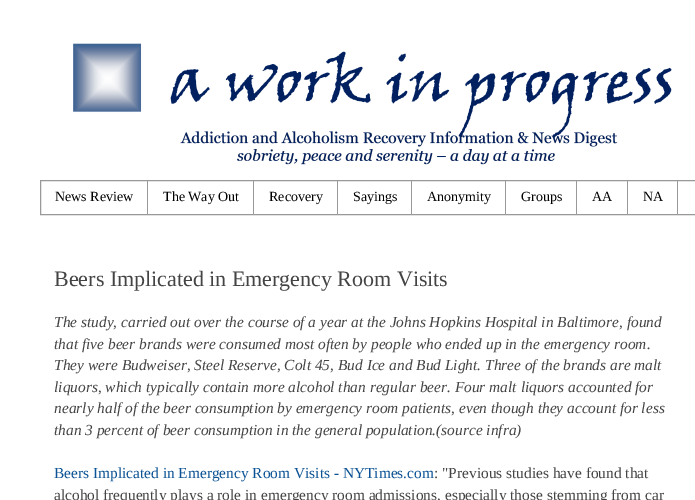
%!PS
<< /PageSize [695 500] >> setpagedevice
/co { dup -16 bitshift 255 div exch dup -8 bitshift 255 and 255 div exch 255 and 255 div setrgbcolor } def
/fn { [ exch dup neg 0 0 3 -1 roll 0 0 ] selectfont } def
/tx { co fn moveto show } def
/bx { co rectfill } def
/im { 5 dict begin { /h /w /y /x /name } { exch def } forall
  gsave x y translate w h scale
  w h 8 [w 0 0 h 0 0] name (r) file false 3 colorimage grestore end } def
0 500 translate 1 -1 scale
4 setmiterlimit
0 0 695 500 16#FFFFFF bx
(media/1.raw) 73 43 599 122 im
16#999999 co
40.5 180.5 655 34 rectstroke
147 181 1 33 16#999999 bx
253 181 1 33 16#999999 bx
337 181 1 33 16#999999 bx
411 181 1 33 16#999999 bx
505 181 1 33 16#999999 bx
576 181 1 33 16#999999 bx
627 181 1 33 16#999999 bx
677 181 1 33 16#999999 bx
(News Review) 55 201 /LiberationSerif-Regular 14 16#000000 tx
(The Way Out) 163 201 /LiberationSerif-Regular 14 16#000000 tx
(Recovery) 269 201 /LiberationSerif-Regular 14 16#000000 tx
(Sayings) 353 201 /LiberationSerif-Regular 14 16#000000 tx
(Anonymity) 427 201 /LiberationSerif-Regular 14 16#000000 tx
(Groups) 521 201 /LiberationSerif-Regular 14 16#000000 tx
(AA) 592 201 /LiberationSerif-Regular 14 16#000000 tx
(NA) 643 201 /LiberationSerif-Regular 14 16#000000 tx
(Beers Implicated in Emergency Room Visits) 54 286 /LiberationSerif-Regular 22 16#444444 tx
(The study, carried out over the course of a year at the Johns Hopkins Hospital in Baltimore, found) 54 327 /LiberationSerif-Italic 15.4 16#444444 tx
(that five beer brands were consumed most often by people who ended up in the emergency room.) 54 349 /LiberationSerif-Italic 15.4 16#444444 tx
(They were Budweiser, Steel Reserve, Colt 45, Bud Ice and Bud Light. Three of the brands are malt) 54 370 /LiberationSerif-Italic 15.4 16#444444 tx
(liquors, which typically contain more alcohol than regular beer. Four malt liquors accounted for) 54 392 /LiberationSerif-Italic 15.4 16#444444 tx
(nearly half of the beer consumption by emergency room patients, even though they account for less) 54 413 /LiberationSerif-Italic 15.4 16#444444 tx
(than 3 percent of beer consumption in the general population.\(source infra\)) 54 435 /LiberationSerif-Italic 15.4 16#444444 tx
(Beers Implicated in Emergency Room Visits - NYTimes.com) 54 478 /LiberationSerif-Regular 15.4 16#0B5394 tx
(: "Previous studies have found that) 434 478 /LiberationSerif-Regular 15.4 16#444444 tx
(alcohol frequently plays a role in emergency room admissions, especially those stemming from car) 54 500 /LiberationSerif-Regular 15.4 16#444444 tx
showpage
